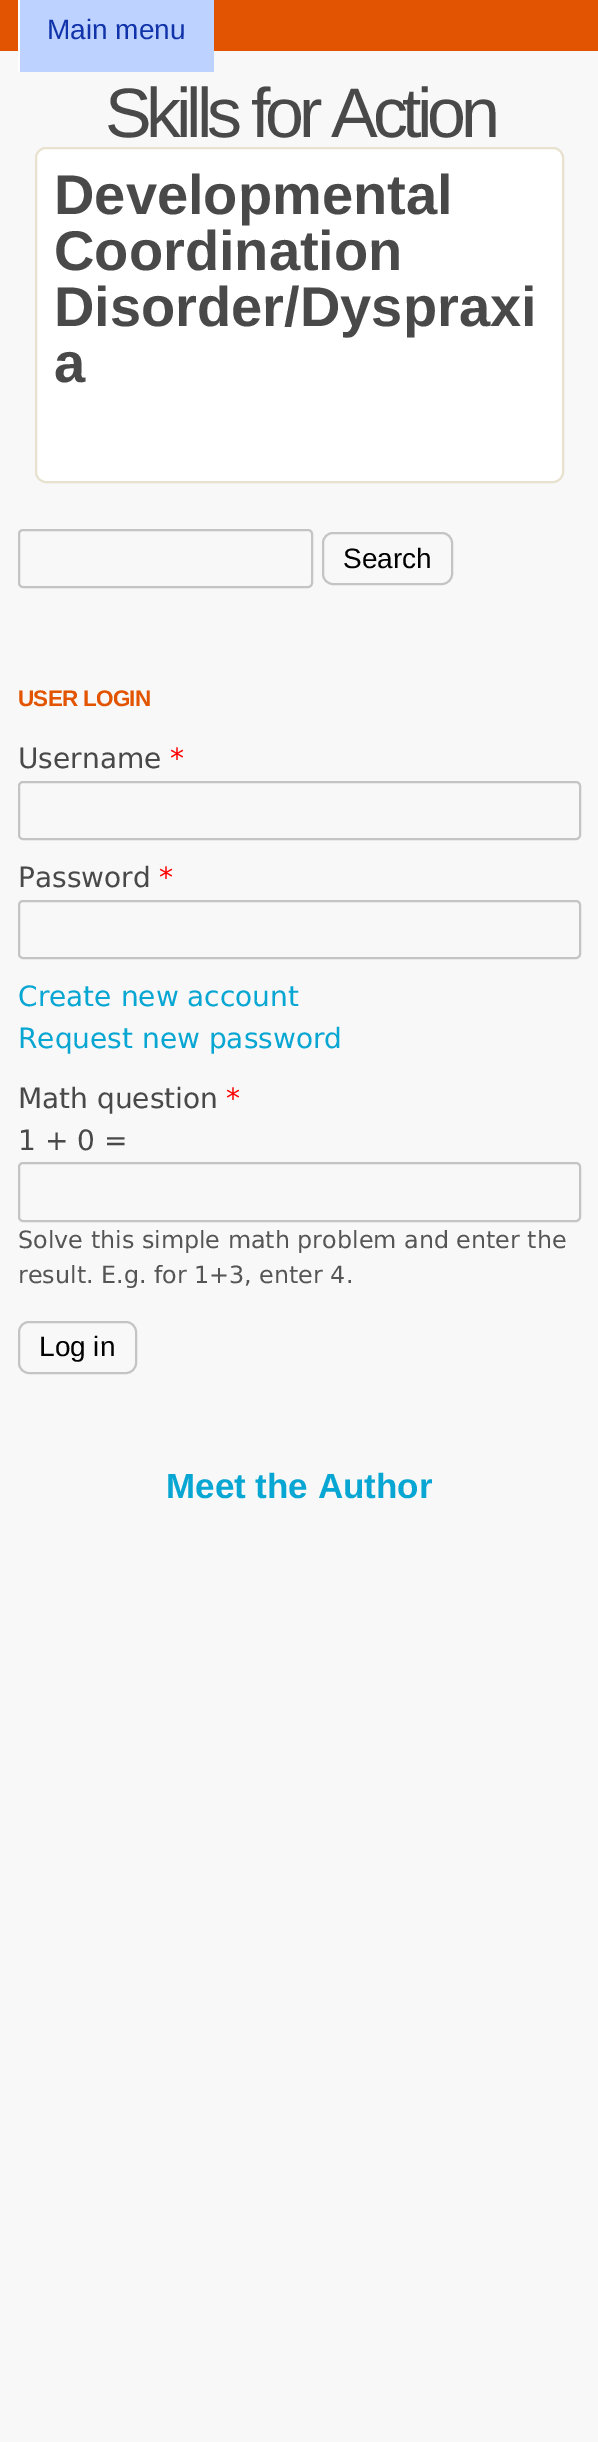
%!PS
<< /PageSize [598 2442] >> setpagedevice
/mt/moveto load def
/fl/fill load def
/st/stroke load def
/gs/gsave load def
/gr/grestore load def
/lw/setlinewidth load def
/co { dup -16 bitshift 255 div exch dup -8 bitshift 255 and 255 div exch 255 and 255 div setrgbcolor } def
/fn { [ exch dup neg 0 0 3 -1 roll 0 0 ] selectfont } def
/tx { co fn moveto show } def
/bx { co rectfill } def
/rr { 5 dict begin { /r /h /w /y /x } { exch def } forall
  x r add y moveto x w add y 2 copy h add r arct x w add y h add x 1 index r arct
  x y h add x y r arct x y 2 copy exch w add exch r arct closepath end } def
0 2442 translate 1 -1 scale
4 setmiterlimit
0 0 598 2442 16#F8F8F8 bx
0 0 598 51 16#E25401 bx
20 0 194 72 16#BDD2FF bx
18 0 2 72 16#FFFFFF bx
36 148 527 334 10 rr gs fl gr
16#E7E1CE co
2 lw
st
16#C4C4C4 co
19 530 293 57 4 rr st
323 533 129 51 10 rr st
19 782 561 57 4 rr st
19 901 561 57 4 rr st
19 1163 561 58 4 rr st
19 1322 117 51 10 rr st
(Main menu) 47 39 /LiberationSans-Regular 28 16#1133AA tx
/LiberationSans-Regular 70 fn
16#494949 co
105 137 mt -5.25 0 (Skills for Action) ashow
(Developmental) 54 214 /LiberationSans-Bold 56 16#494949 tx
(Coordination) 54 270 /LiberationSans-Bold 56 16#494949 tx
(Disorder/Dyspraxi) 54 326 /LiberationSans-Bold 56 16#494949 tx
(a) 54 382 /LiberationSans-Bold 56 16#494949 tx
(Search) 343 568 /LiberationSans-Regular 28 16#000000 tx
/LiberationSans-Bold 22.5 fn
16#E25400 co
18 706 mt -.75 0 (USER LOGIN) ashow
(Username) 18 768 /DejaVuSans-Regular 28 16#494949 tx
(*) 170 768 /DejaVuSans-Regular 28 16#FF0000 tx
(Password) 18 887 /DejaVuSans-Regular 28 16#494949 tx
(*) 159 887 /DejaVuSans-Regular 28 16#FF0000 tx
(Create new account) 18 1006 /DejaVuSans-Regular 28 16#08A6D2 tx
(Request new password) 18 1048 /DejaVuSans-Regular 28 16#08A6D2 tx
(Math question) 18 1108 /DejaVuSans-Regular 28 16#494949 tx
(*) 226 1108 /DejaVuSans-Regular 28 16#FF0000 tx
(1 + 0 =) 18 1150 /DejaVuSans-Regular 28 16#494949 tx
(Solve this simple math problem and enter the) 18 1248 /DejaVuSans-Regular 23.8 16#555555 tx
(result. E.g. for 1+3, enter 4.) 18 1283 /DejaVuSans-Regular 23.8 16#555555 tx
(Log in) 39 1356 /LiberationSans-Regular 28 16#000000 tx
(Meet the Author) 166 1498 /LiberationSans-Bold 35 16#08A6D2 tx
showpage
